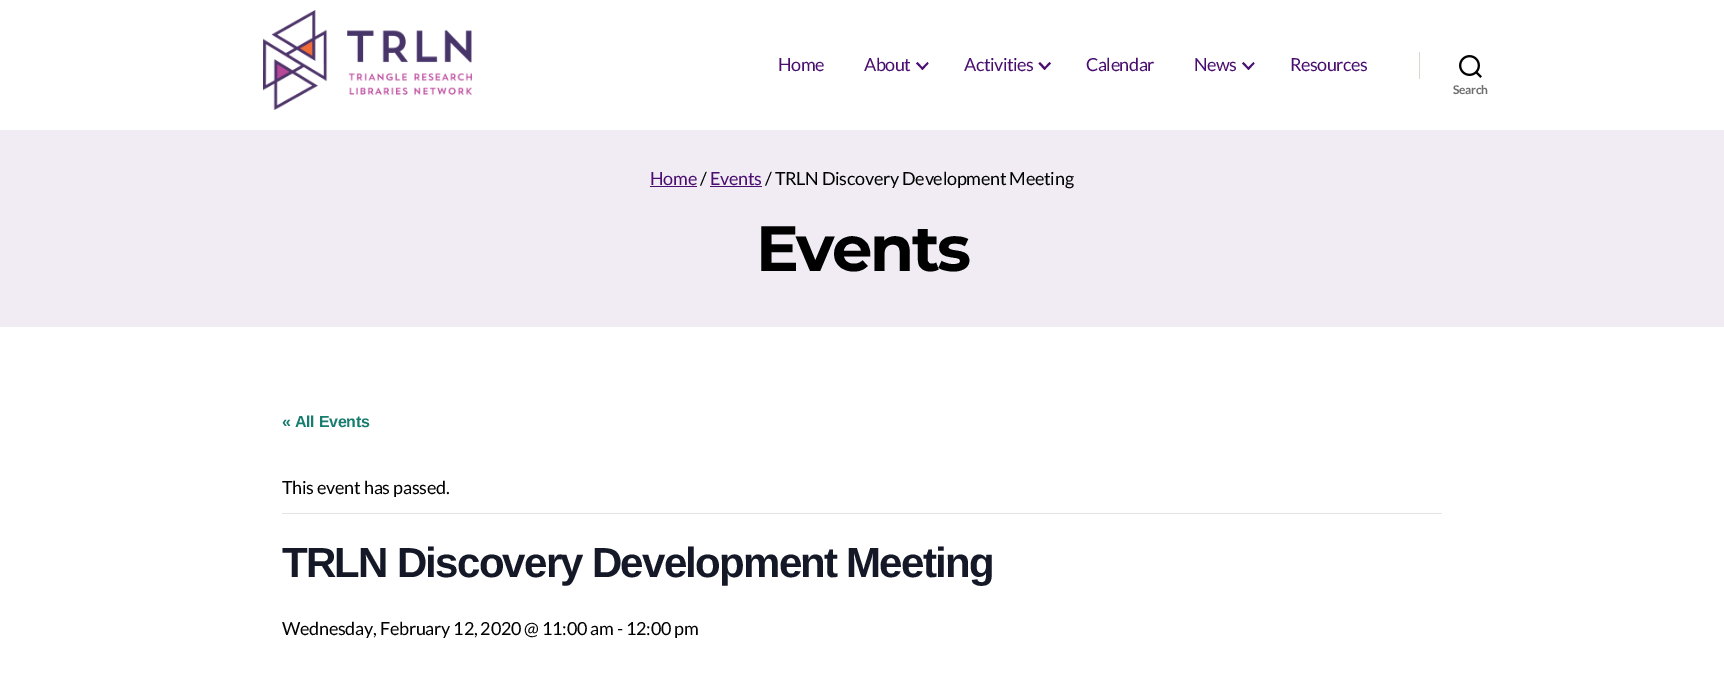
%!PS
<< /PageSize [1724 677] >> setpagedevice
/mt/moveto load def
/li/lineto load def
/cp/closepath load def
/fl/fill load def
/co { dup -16 bitshift 255 div exch dup -8 bitshift 255 and 255 div exch 255 and 255 div setrgbcolor } def
/fn { [ exch dup neg 0 0 3 -1 roll 0 0 ] selectfont } def
/bx { co rectfill } def
/im { 5 dict begin { /h /w /y /x /name } { exch def } forall
  gsave x y translate w h scale
  w h 8 [w 0 0 h 0 0] name (r) file false 3 colorimage grestore end } def
0 677 translate 1 -1 scale
4 setmiterlimit
0 0 1724 677 16#FFFFFF bx
(media/1.raw) 263 10 209 100 im
16#490E6F co
916 63.5 mt 917.5 62 li 923.5 68.5 li 922.5 70 li cp fl
921 68.5 mt 927.5 62 li 928.5 63.5 li 922.5 70 li cp fl
1038.5 63.5 mt 1040 62 li 1046 68.5 li 1044.5 70 li cp fl
1043.5 68.5 mt 1049.5 62 li 1051 63.5 li 1044.5 70 li cp fl
1242 63.5 mt 1243.5 62 li 1249.5 68.5 li 1248.5 70 li cp fl
1247 68.5 mt 1253.5 62 li 1254.5 63.5 li 1248.5 70 li cp fl
1419 52 1 27 16#DCD7CA bx
(media/2.raw) 1459 55 23 23 im
0 130 1724 197 16#F1ECF4 bx
650 186 47 1 16#490E6F bx
710 186 52 1 16#490E6F bx
282 513 1160 1 16#E4E4E4 bx
/Lato-Regular 18 fn
16#490E6F co
778 71 mt -.5 0 (Home) ashow
864 71 mt -.5 0 (About) ashow
964 71 mt -.5 0 (Activities) ashow
1086 71 mt -.5 0 (Calendar) ashow
1194 71 mt -.5 0 (News) ashow
1290 71 mt -.5 0 (Resources) ashow
/Lato-Bold 12 fn
16#6D6D6D co
1453 94 mt -.27 0 (Search) ashow
/Lato-Regular 18 fn
16#490E6F co
650 185 mt -.27 0 (Home) ashow
16#000000 co
700 185 mt -.27 0 (/) ashow
16#490E6F co
710 185 mt -.27 0 (Events) ashow
16#000000 co
765 185 mt -.27 0 (/ TRLN Discovery Development Meeting) ashow
/Montserrat-Thin 64 fn
756 271 mt -2.5 0 (Events) ashow
/LiberationSans-Bold 16 fn
16#177D6E co
282 427 mt -.27 0 (« All Events) ashow
/Lato-Regular 18 fn
16#000000 co
282 494 mt -.27 0 (This event has passed.) ashow
/LiberationSans-Bold 42 fn
16#141827 co
282 577 mt -1.75 0 (TRLN Discovery Development Meeting) ashow
/Lato-Regular 18 fn
16#000000 co
282 635 mt -.27 0 (Wednesday, February 12, 2020 @ 11:00 am - 12:00 pm) ashow
showpage
